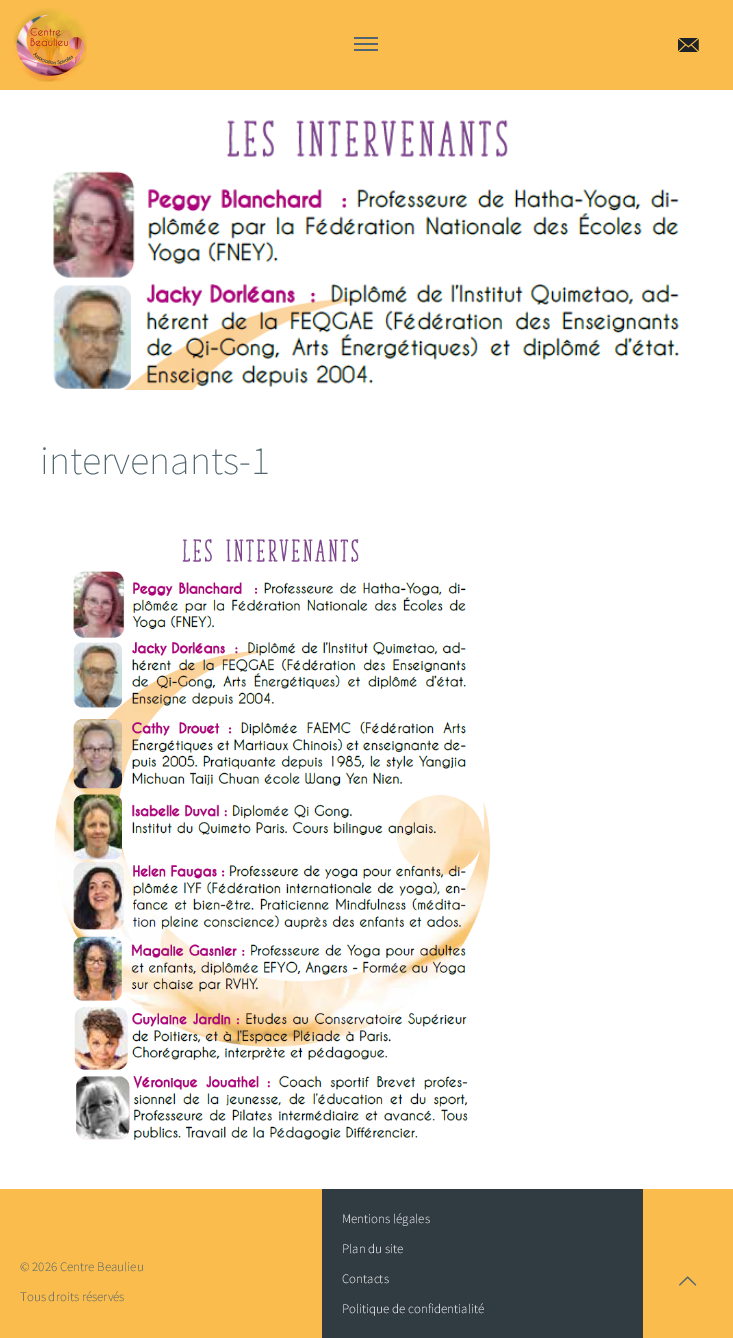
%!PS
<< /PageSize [733 1338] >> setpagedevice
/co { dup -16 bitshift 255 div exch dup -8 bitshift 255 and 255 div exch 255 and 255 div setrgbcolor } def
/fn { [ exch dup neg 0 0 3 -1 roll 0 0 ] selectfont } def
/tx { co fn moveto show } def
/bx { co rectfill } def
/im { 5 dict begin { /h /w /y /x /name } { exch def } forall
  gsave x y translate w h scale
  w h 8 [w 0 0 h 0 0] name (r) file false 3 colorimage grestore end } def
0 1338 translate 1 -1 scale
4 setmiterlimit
0 0 733 1338 16#FFFFFF bx
0 0 733 90 16#FABC4C bx
(media/1.raw) 13 8 74 74 im
354 43 24 2 16#52656E bx
354 37 24 2 16#52656E bx
354 49 24 2 16#52656E bx
(media/2.raw) 678 38 21 14 im
(media/3.raw) 53 119 626 271 im
(media/4.raw) 54 538 437 602 im
0 1189 733 149 16#FABC4C bx
322 1189 321 149 16#313C42 bx
(media/5.raw) 679 1276 18 10 im
(intervenants-1) 40 474 /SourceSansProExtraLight-ExtraLight 40 16#52656E tx
(© 2026 Centre Beaulieu) 20 1271 /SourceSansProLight-Light 13 16#52656E tx
(Tous droits réservés) 20 1301 /SourceSansProLight-Light 13 16#52656E tx
(Mentions légales) 342 1223 /SourceSansProLight-Light 13 16#FFFFFF tx
(Plan du site) 342 1253 /SourceSansProLight-Light 13 16#FFFFFF tx
(Contacts) 342 1283 /SourceSansProLight-Light 13 16#FFFFFF tx
(Politique de confidentialité) 342 1313 /SourceSansProLight-Light 13 16#FFFFFF tx
showpage
